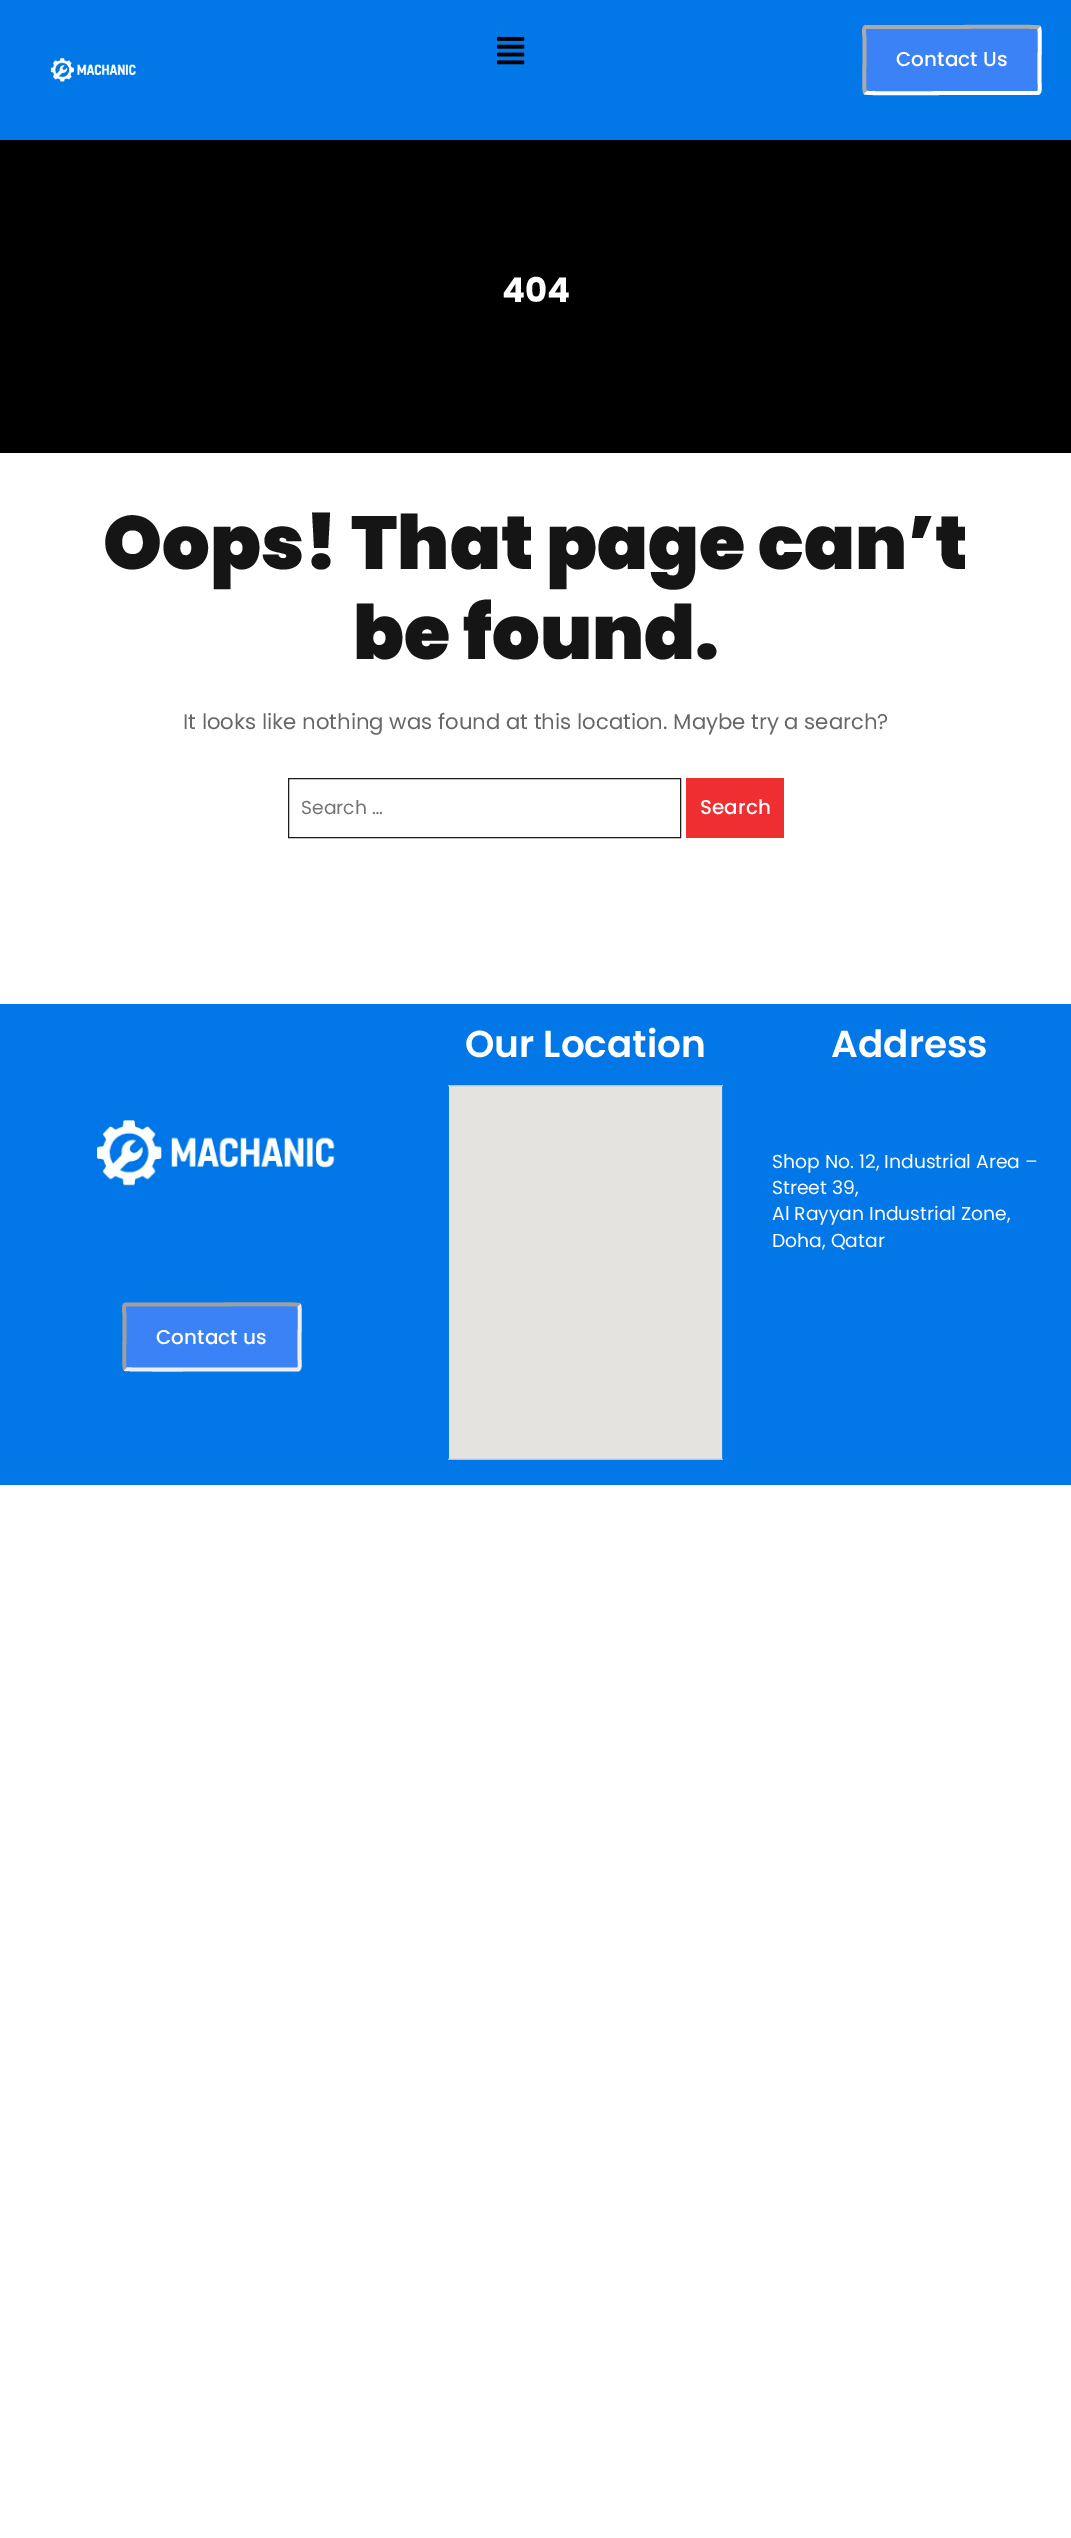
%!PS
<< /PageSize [1071 2538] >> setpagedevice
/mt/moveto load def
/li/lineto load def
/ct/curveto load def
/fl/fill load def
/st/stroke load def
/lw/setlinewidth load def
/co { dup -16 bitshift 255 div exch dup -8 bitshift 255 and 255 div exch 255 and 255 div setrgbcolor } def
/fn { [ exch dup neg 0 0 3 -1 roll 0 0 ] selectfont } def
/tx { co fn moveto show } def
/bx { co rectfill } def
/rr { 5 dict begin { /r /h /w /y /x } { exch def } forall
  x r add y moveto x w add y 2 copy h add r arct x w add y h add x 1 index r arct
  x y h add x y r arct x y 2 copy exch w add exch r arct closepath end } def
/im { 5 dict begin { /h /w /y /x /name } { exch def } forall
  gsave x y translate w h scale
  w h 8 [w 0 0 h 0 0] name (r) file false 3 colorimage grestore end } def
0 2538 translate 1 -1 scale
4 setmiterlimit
0 0 1071 2538 16#FFFFFF bx
0 0 1071 140 16#0177E8 bx
(media/1.raw) 50 57 86 25 im
(media/2.raw) 496 36 29 29 im
16#3B82F6 co
863 25 178 70 4 rr fl
16#FFFFFF co
3.8 lw
1039 27.5 mt 1040.5 29 1039.5 56 1039.5 60 ct 1039.5 81 li 1039.5 84.5 1041 93 1037.5 93 ct 952 93 li 944 93 866.5 94 865 92.5 ct st
16#AAAAAA co
865 92.5 mt 863.5 91 864.5 64 864.5 60 ct 864.5 39 li 864.5 35.5 862.5 27 866 27 ct 952 27 li 959.5 27 1037.5 26 1039 27.5 ct st
0 140 1071 313 16#000000 bx
16#1C1C1C co
1 lw
288.5 778.5 392 59 rectstroke
686 778 98 60 16#EE2E31 bx
0 1004 1071 481 16#0177E8 bx
(media/3.raw) 448 1085 275 375 im
(media/4.raw) 96 1120 239 66 im
16#3B82F6 co
123 1303 178 68 4 rr fl
16#EEEEEE co
3.8 lw
299 1305 mt 300.5 1306.5 299.5 1333 299.5 1337 ct 299.5 1357.5 li 299.5 1361 301 1369.5 297.5 1369.5 ct 212 1369.5 li 204 1369.5 126.5 1370 125 1369 ct st
16#9F9F9F co
125 1369 mt 123.5 1367 124.5 1340.5 124.5 1337 ct 124.5 1316.5 li 124.5 1312.5 122.5 1304.5 126 1304.5 ct 212 1304.5 li 219.5 1304.5 297.5 1303.5 299 1305 ct st
(Contact Us) 896 66 /Poppins-Medium 20 16#FFFFFF tx
(404) 502 302 /Poppins-Bold 34 16#FFFFFF tx
(Oops! That page can’t) 103 569 /Poppins-Black 75 16#151515 tx
(be found.) 353 659 /Poppins-Black 75 16#151515 tx
(It looks like nothing was found at this location. Maybe try a search?) 183 729 /Poppins-Regular 21.25 16#676767 tx
(Search …) 301 814 /Poppins-Regular 18.75 16#757575 tx
(Search) 700 814 /Poppins-Medium 20 16#FFFFFF tx
(Our Location) 465 1057 /Poppins-SemiBold 37.5 16#FFFFFF tx
(Address) 831 1057 /Poppins-SemiBold 37.5 16#FFFFFF tx
(Shop No. 12, Industrial Area –) 772 1168 /Poppins-Regular 18.75 16#FFFFFF tx
(Street 39,) 772 1194 /Poppins-Regular 18.75 16#FFFFFF tx
(Al Rayyan Industrial Zone,) 772 1220 /Poppins-Regular 18.75 16#FFFFFF tx
(Doha, Qatar) 772 1247 /Poppins-Regular 18.75 16#FFFFFF tx
(Contact us) 156 1344 /Poppins-Medium 20 16#FFFFFF tx
showpage
